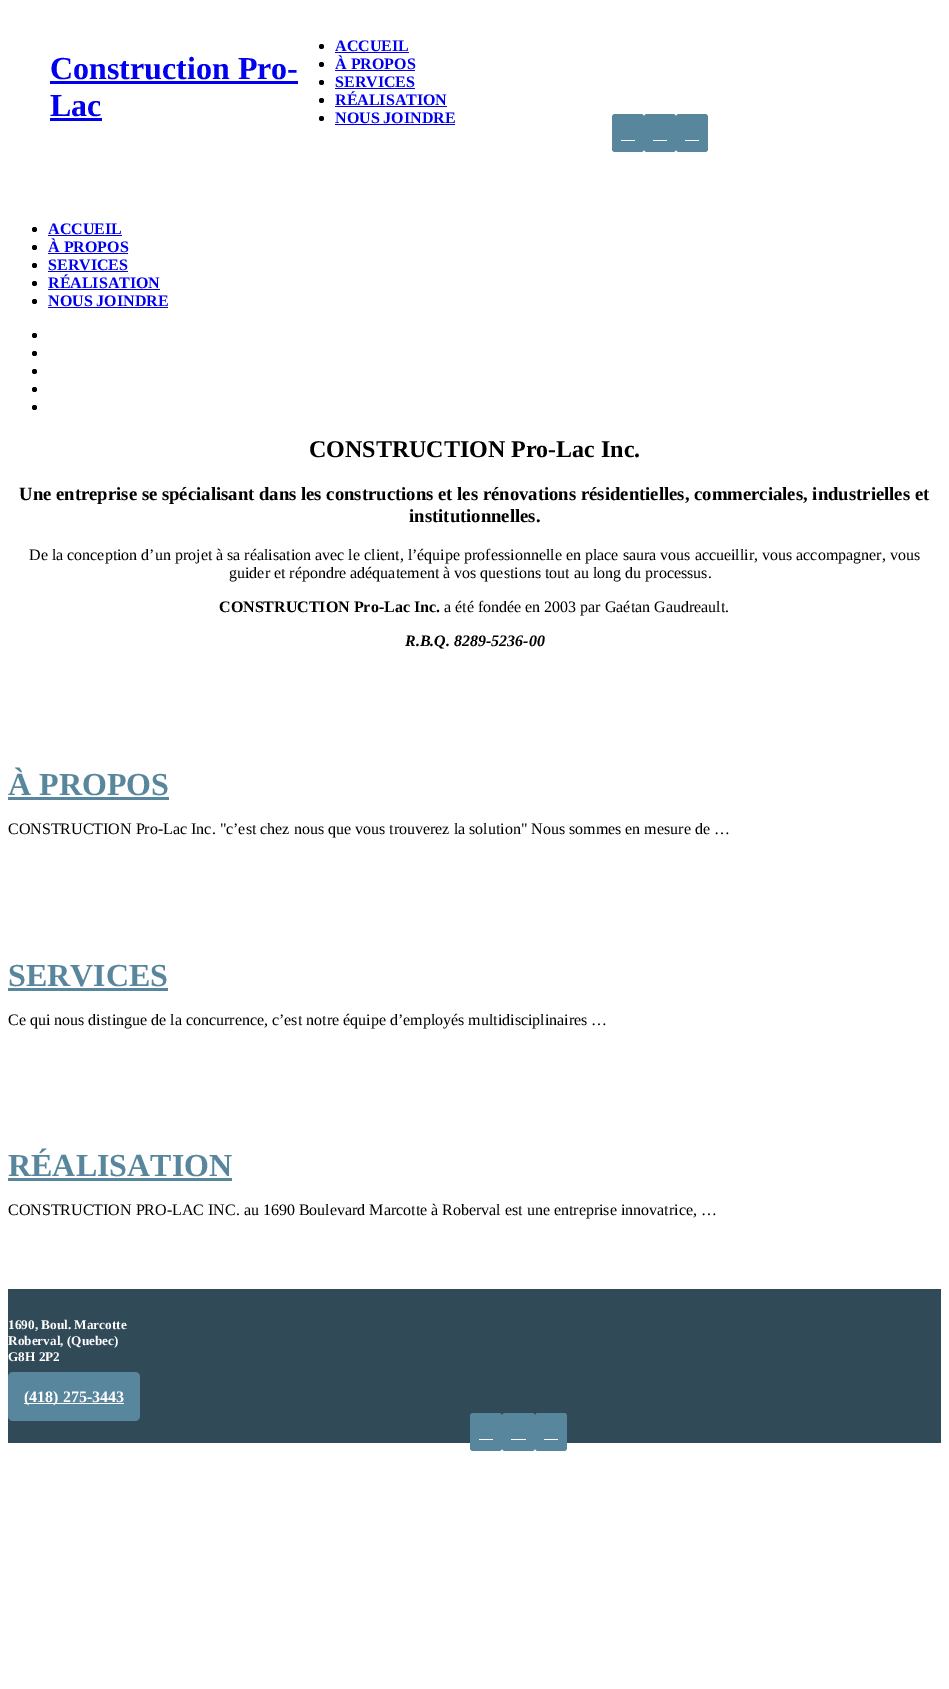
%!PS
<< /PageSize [949 1689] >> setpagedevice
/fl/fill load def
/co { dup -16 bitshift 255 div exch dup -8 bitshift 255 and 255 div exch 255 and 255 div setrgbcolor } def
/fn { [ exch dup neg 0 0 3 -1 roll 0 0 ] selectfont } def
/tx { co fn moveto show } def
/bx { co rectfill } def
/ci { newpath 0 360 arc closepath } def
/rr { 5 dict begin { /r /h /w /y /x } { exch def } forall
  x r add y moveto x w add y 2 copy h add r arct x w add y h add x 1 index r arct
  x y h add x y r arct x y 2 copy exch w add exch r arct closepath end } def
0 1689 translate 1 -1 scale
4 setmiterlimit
0 0 949 1689 16#FFFFFF bx
50 81 248 3 16#0000EE bx
50 118 52 3 16#0000EE bx
16#000000 co
321.5 46.5 2.5 ci fl
335 52 74 1 16#0000EE bx
16#000000 co
321.5 64.5 2.5 ci fl
335 70 80 1 16#0000EE bx
16#000000 co
321.5 82.5 2.5 ci fl
335 88 80 1 16#0000EE bx
16#000000 co
321.5 100.5 2.5 ci fl
335 106 112 1 16#0000EE bx
16#000000 co
321.5 118.5 2.5 ci fl
335 124 120 1 16#0000EE bx
16#58869C co
612 114 32 38 3 rr fl
644 114 32 38 3 rr fl
676 114 32 38 3 rr fl
621 140 14 1 16#FFFFFF bx
653 140 14 1 16#FFFFFF bx
685 140 14 1 16#FFFFFF bx
16#000000 co
34.5 229.5 2.5 ci fl
48 235 74 1 16#0000EE bx
16#000000 co
34.5 247.5 2.5 ci fl
48 253 80 1 16#0000EE bx
16#000000 co
34.5 265.5 2.5 ci fl
48 271 80 1 16#0000EE bx
16#000000 co
34.5 283.5 2.5 ci fl
48 289 112 1 16#0000EE bx
16#000000 co
34.5 301.5 2.5 ci fl
48 307 120 1 16#0000EE bx
16#000000 co
34.5 335.5 2.5 ci fl
34.5 353.5 2.5 ci fl
34.5 371.5 2.5 ci fl
34.5 389.5 2.5 ci fl
34.5 407.5 2.5 ci fl
8 797 161 3 16#58869C bx
8 988 160 3 16#58869C bx
8 1178 224 3 16#58869C bx
8 1289 933 154 16#314A57 bx
16#58869C co
8 1372 132 49 5 rr fl
24 1403 100 1 16#FFFFFF bx
16#58869C co
470 1413 32 38 3 rr fl
502 1413 33 38 3 rr fl
535 1413 32 38 3 rr fl
479 1439 14 1 16#FFFFFF bx
511 1439 15 1 16#FFFFFF bx
544 1439 14 1 16#FFFFFF bx
(Construction Pro-) 50 79 /LiberationSerif-Bold 32 16#0000EE tx
(Lac) 50 116 /LiberationSerif-Bold 32 16#0000EE tx
(ACCUEIL) 335 51 /LiberationSerif-Bold 16 16#0000EE tx
(À PROPOS) 335 69 /LiberationSerif-Bold 16 16#0000EE tx
(SERVICES) 335 87 /LiberationSerif-Bold 16 16#0000EE tx
(RÉALISATION) 335 105 /LiberationSerif-Bold 16 16#0000EE tx
(NOUS JOINDRE) 335 123 /LiberationSerif-Bold 16 16#0000EE tx
(ACCUEIL) 48 234 /LiberationSerif-Bold 16 16#0000EE tx
(À PROPOS) 48 252 /LiberationSerif-Bold 16 16#0000EE tx
(SERVICES) 48 270 /LiberationSerif-Bold 16 16#0000EE tx
(RÉALISATION) 48 288 /LiberationSerif-Bold 16 16#0000EE tx
(NOUS JOINDRE) 48 306 /LiberationSerif-Bold 16 16#0000EE tx
(CONSTRUCTION Pro-Lac Inc.) 309 457 /LiberationSerif-Bold 24 16#000000 tx
(Une entreprise se spécialisant dans les constructions et les rénovations résidentielles, commerciales, industrielles et) 19 500 /LiberationSerif-Bold 18.7 16#000000 tx
(institutionnelles.) 409 522 /LiberationSerif-Bold 18.7 16#000000 tx
(De la conception d’un projet à sa réalisation avec le client, l’équipe professionnelle en place saura vous accueillir, vous accompagner, vous) 29 560 /LiberationSerif-Regular 16 16#000000 tx
(guider et répondre adéquatement à vos questions tout au long du processus.) 229 578 /LiberationSerif-Regular 16 16#000000 tx
(CONSTRUCTION Pro-Lac Inc.) 219 612 /LiberationSerif-Bold 16 16#000000 tx
(a été fondée en 2003 par Gaétan Gaudreault.) 444 612 /LiberationSerif-Regular 16 16#000000 tx
(R.B.Q. 8289-5236-00) 405 646 /LiberationSerif-BoldItalic 16 16#000000 tx
(À PROPOS) 8 795 /LiberationSerif-Bold 32 16#58869C tx
(CONSTRUCTION Pro-Lac Inc. "c’est chez nous que vous trouverez la solution" Nous sommes en mesure de …) 8 834 /LiberationSerif-Regular 16 16#000000 tx
(SERVICES) 8 986 /LiberationSerif-Bold 32 16#58869C tx
(Ce qui nous distingue de la concurrence, c’est notre équipe d’employés multidisciplinaires …) 8 1025 /LiberationSerif-Regular 16 16#000000 tx
(RÉALISATION) 8 1176 /LiberationSerif-Bold 32 16#58869C tx
(CONSTRUCTION PRO-LAC INC. au 1690 Boulevard Marcotte à Roberval est une entreprise innovatrice, …) 8 1215 /LiberationSerif-Regular 16 16#000000 tx
(1690, Boul. Marcotte) 8 1329 /LiberationSerif-Bold 13.25 16#FFFFFF tx
(Roberval, \(Quebec\)) 8 1345 /LiberationSerif-Bold 13.25 16#FFFFFF tx
(G8H 2P2) 8 1361 /LiberationSerif-Bold 13.25 16#FFFFFF tx
(\(418\) 275-3443) 24 1402 /LiberationSerif-Bold 16 16#FFFFFF tx
showpage
